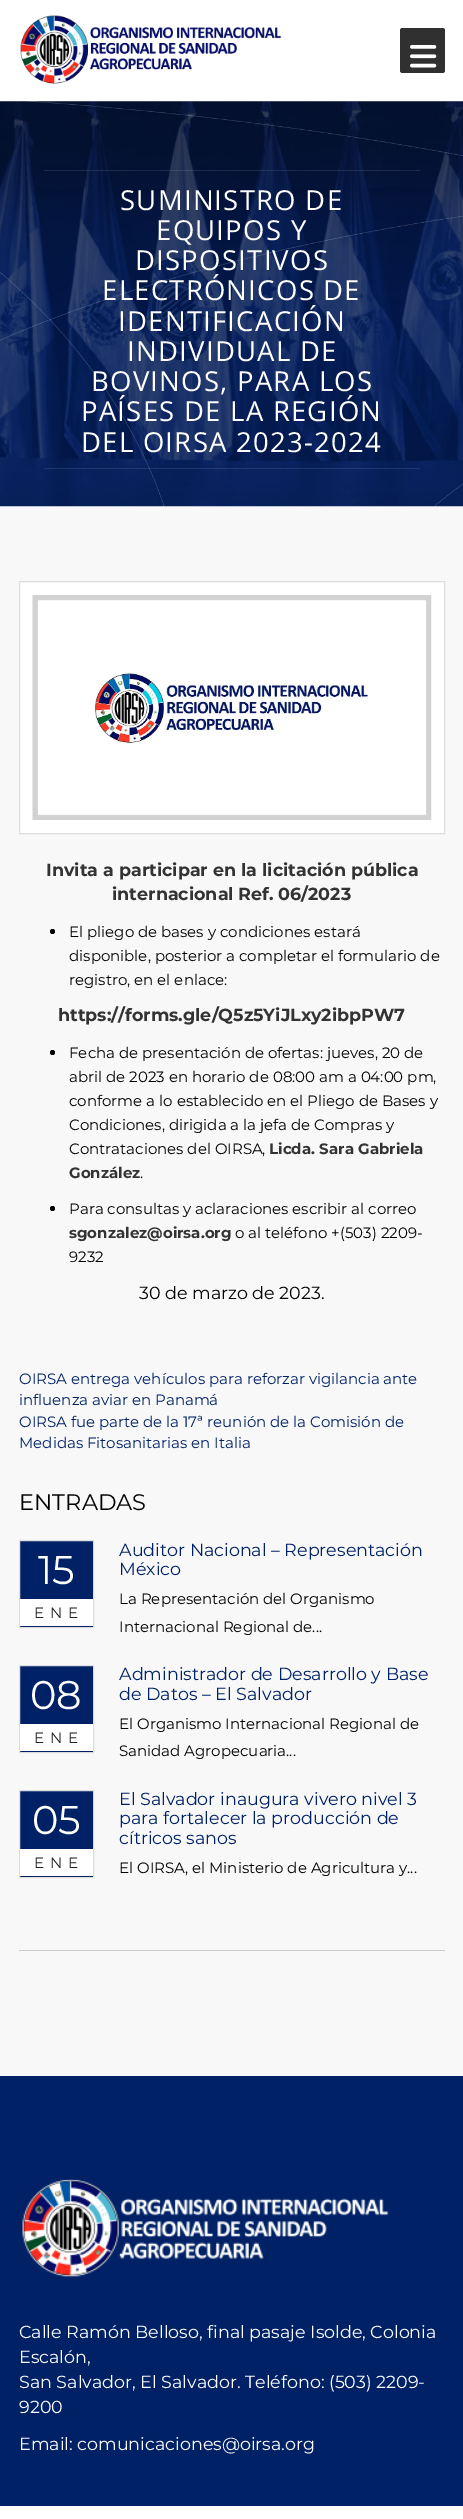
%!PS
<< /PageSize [463 2519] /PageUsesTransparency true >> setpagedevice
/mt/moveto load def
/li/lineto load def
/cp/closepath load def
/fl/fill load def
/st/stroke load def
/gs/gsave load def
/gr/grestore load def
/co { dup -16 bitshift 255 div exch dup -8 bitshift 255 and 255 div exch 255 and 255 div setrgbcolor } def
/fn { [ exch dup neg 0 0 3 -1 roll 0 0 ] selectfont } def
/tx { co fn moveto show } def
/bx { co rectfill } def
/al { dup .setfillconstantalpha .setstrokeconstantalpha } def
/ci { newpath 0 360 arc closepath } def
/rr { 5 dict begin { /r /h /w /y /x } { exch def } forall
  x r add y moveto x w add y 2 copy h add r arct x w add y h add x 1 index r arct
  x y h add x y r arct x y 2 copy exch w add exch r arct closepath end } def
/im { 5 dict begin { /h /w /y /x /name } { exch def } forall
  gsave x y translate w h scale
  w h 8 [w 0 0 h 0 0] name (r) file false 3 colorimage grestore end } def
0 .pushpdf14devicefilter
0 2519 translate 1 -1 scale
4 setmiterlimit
0 0 463 2519 16#FFFFFF bx
(media/1.raw) 20 15 262 69 im
16#303030 co
400 28 45 45 2.5 rr fl
(media/2.raw) 410 45 27 23 im
0 506 463 1570 16#F8F8F8 bx
(media/3.raw) 0 101 463 406 im
0.1 al
44 170 376 1 16#FFFFFF bx
44 468 376 1 16#FFFFFF bx
1 al
19.5 581.5 mt 444.5 581.5 li 444.5 833.5 li 19.5 833.5 li cp gs fl gr
16#DDDDDD co
st
(media/4.raw) 32 595 400 225 im
16#000000 co
52.5 931.5 2.5 ci fl
52.5 1052.5 2.5 ci fl
52.5 1208.5 2.5 ci fl
19 1950 426 1 16#CCCCCC bx
16#002166 co
19.5 1540.5 mt 93.5 1540.5 li 93.5 1627.5 li 19.5 1627.5 li cp gs fl gr
16#DDDDDD co
st
20 1599 73 27 16#FFFFFF bx
16#002166 co
19.5 1665.5 mt 93.5 1665.5 li 93.5 1752.5 li 19.5 1752.5 li cp gs fl gr
16#DDDDDD co
st
20 1724 73 27 16#FFFFFF bx
16#002166 co
19.5 1790.5 mt 93.5 1790.5 li 93.5 1877.5 li 19.5 1877.5 li cp gs fl gr
16#DDDDDD co
st
20 1849 73 27 16#FFFFFF bx
0 2076 463 430 16#002166 bx
(media/5.raw) 22 2179 367 98 im
/OpenSans-Regular 27.5 fn
16#FFFFFF co
120 210 mt 1.25 0 (SUMINISTRO DE) ashow
156 240 mt 1.25 0 (EQUIPOS Y) ashow
135 270 mt 1.25 0 (DISPOSITIVOS) ashow
102 300 mt 1.25 0 (ELECTRÓNICOS DE) ashow
118 331 mt 1.25 0 (IDENTIFICACIÓN) ashow
127 361 mt 1.25 0 (INDIVIDUAL DE) ashow
91 391 mt 1.25 0 (BOVINOS, PARA LOS) ashow
81 421 mt 1.25 0 (PAÍSES DE LA REGIÓN) ashow
81 452 mt 1.25 0 (DEL OIRSA 2023-2024) ashow
(Invita a participar en la licitación pública) 46 876 /Montserrat-Bold 17.5 16#333333 tx
(internacional) 112 900 /Montserrat-Bold 17.5 16#333333 tx
(Ref. 06/2023) 238 900 /Montserrat-Bold 17.5 16#333333 tx
(El pliego de bases y condiciones estará) 69 937 /Montserrat-Thin 15 16#000000 tx
(disponible, posterior a completar el formulario de) 69 961 /Montserrat-Thin 15 16#000000 tx
(registro, en el enlace:) 69 985 /Montserrat-Thin 15 16#000000 tx
(https://forms.gle/Q5z5YiJLxy2ibpPW7) 58 1021 /Montserrat-Bold 17.5 16#333333 tx
(Fecha de presentación de ofertas: jueves, 20 de) 69 1058 /Montserrat-Thin 15 16#000000 tx
(abril de 2023 en horario de 08:00 am a 04:00 pm,) 69 1082 /Montserrat-Thin 15 16#000000 tx
(conforme a lo establecido en el Pliego de Bases y) 69 1106 /Montserrat-Thin 15 16#000000 tx
(Condiciones, dirigida a la jefa de Compras y) 69 1130 /Montserrat-Thin 15 16#000000 tx
(Contrataciones del OIRSA,) 69 1154 /Montserrat-Thin 15 16#000000 tx
(Licda. Sara Gabriela) 269 1154 /Montserrat-Bold 15 16#333333 tx
(González) 69 1178 /Montserrat-Bold 15 16#333333 tx
(.) 140 1178 /Montserrat-Thin 15 16#000000 tx
(Para consultas y aclaraciones escribir al correo) 69 1214 /Montserrat-Thin 15 16#000000 tx
(sgonzalez@oirsa.org) 69 1238 /Montserrat-Bold 15 16#333333 tx
(o al teléfono +\(503\) 2209-) 235 1238 /Montserrat-Thin 15 16#000000 tx
(9232) 69 1262 /Montserrat-Thin 15 16#000000 tx
(30 de marzo de 2023.) 139 1299 /Montserrat-Thin 17.5 16#000000 tx
(OIRSA entrega vehículos para reforzar vigilancia ante) 19 1384 /Montserrat-Thin 15 16#002166 tx
(influenza aviar en Panamá) 19 1405 /Montserrat-Thin 15 16#002166 tx
(OIRSA fue parte de la 17ª reunión de la Comisión de) 19 1427 /Montserrat-Thin 15 16#002166 tx
(Medidas Fitosanitarias en Italia) 19 1448 /Montserrat-Thin 15 16#002166 tx
(ENTRADAS) 19 1510 /Montserrat-Thin 22.5 16#000000 tx
(15) 38 1584 /Montserrat-Thin 40 16#FFFFFF tx
/Montserrat-Thin 15 fn
16#222222 co
34 1618 mt 6 0 (ENE) ashow
(Auditor Nacional – Representación) 119 1556 /Montserrat-Thin 17.5 16#002166 tx
(México) 119 1575 /Montserrat-Thin 17.5 16#002166 tx
(La Representación del Organismo) 119 1604 /Montserrat-Thin 15 16#000000 tx
(Internacional Regional de...) 119 1632 /Montserrat-Thin 15 16#000000 tx
(08) 30 1709 /Montserrat-Thin 40 16#FFFFFF tx
/Montserrat-Thin 15 fn
16#222222 co
34 1743 mt 6 0 (ENE) ashow
(Administrador de Desarrollo y Base) 119 1680 /Montserrat-Thin 17.5 16#002166 tx
(de Datos – El Salvador) 119 1700 /Montserrat-Thin 17.5 16#002166 tx
(El Organismo Internacional Regional de) 119 1729 /Montserrat-Thin 15 16#000000 tx
(Sanidad Agropecuaria...) 119 1756 /Montserrat-Thin 15 16#000000 tx
(05) 32 1834 /Montserrat-Thin 40 16#FFFFFF tx
/Montserrat-Thin 15 fn
16#222222 co
34 1868 mt 6 0 (ENE) ashow
(El Salvador inaugura vivero nivel 3) 119 1805 /Montserrat-Thin 17.5 16#002166 tx
(para fortalecer la producción de) 119 1824 /Montserrat-Thin 17.5 16#002166 tx
(cítricos sanos) 119 1844 /Montserrat-Thin 17.5 16#002166 tx
(El OIRSA, el Ministerio de Agricultura y...) 119 1873 /Montserrat-Thin 15 16#000000 tx
(Calle Ramón Belloso, final pasaje Isolde, Colonia) 19 2338 /Montserrat-Thin 17.5 16#FFFFFF tx
(Escalón,) 19 2363 /Montserrat-Thin 17.5 16#FFFFFF tx
(San Salvador, El Salvador. Teléfono: \(503\) 2209-) 19 2388 /Montserrat-Thin 17.5 16#FFFFFF tx
(9200) 19 2413 /Montserrat-Thin 17.5 16#FFFFFF tx
(Email: comunicaciones@oirsa.org) 19 2450 /Montserrat-Thin 17.5 16#FFFFFF tx
.poppdf14devicefilter showpage
